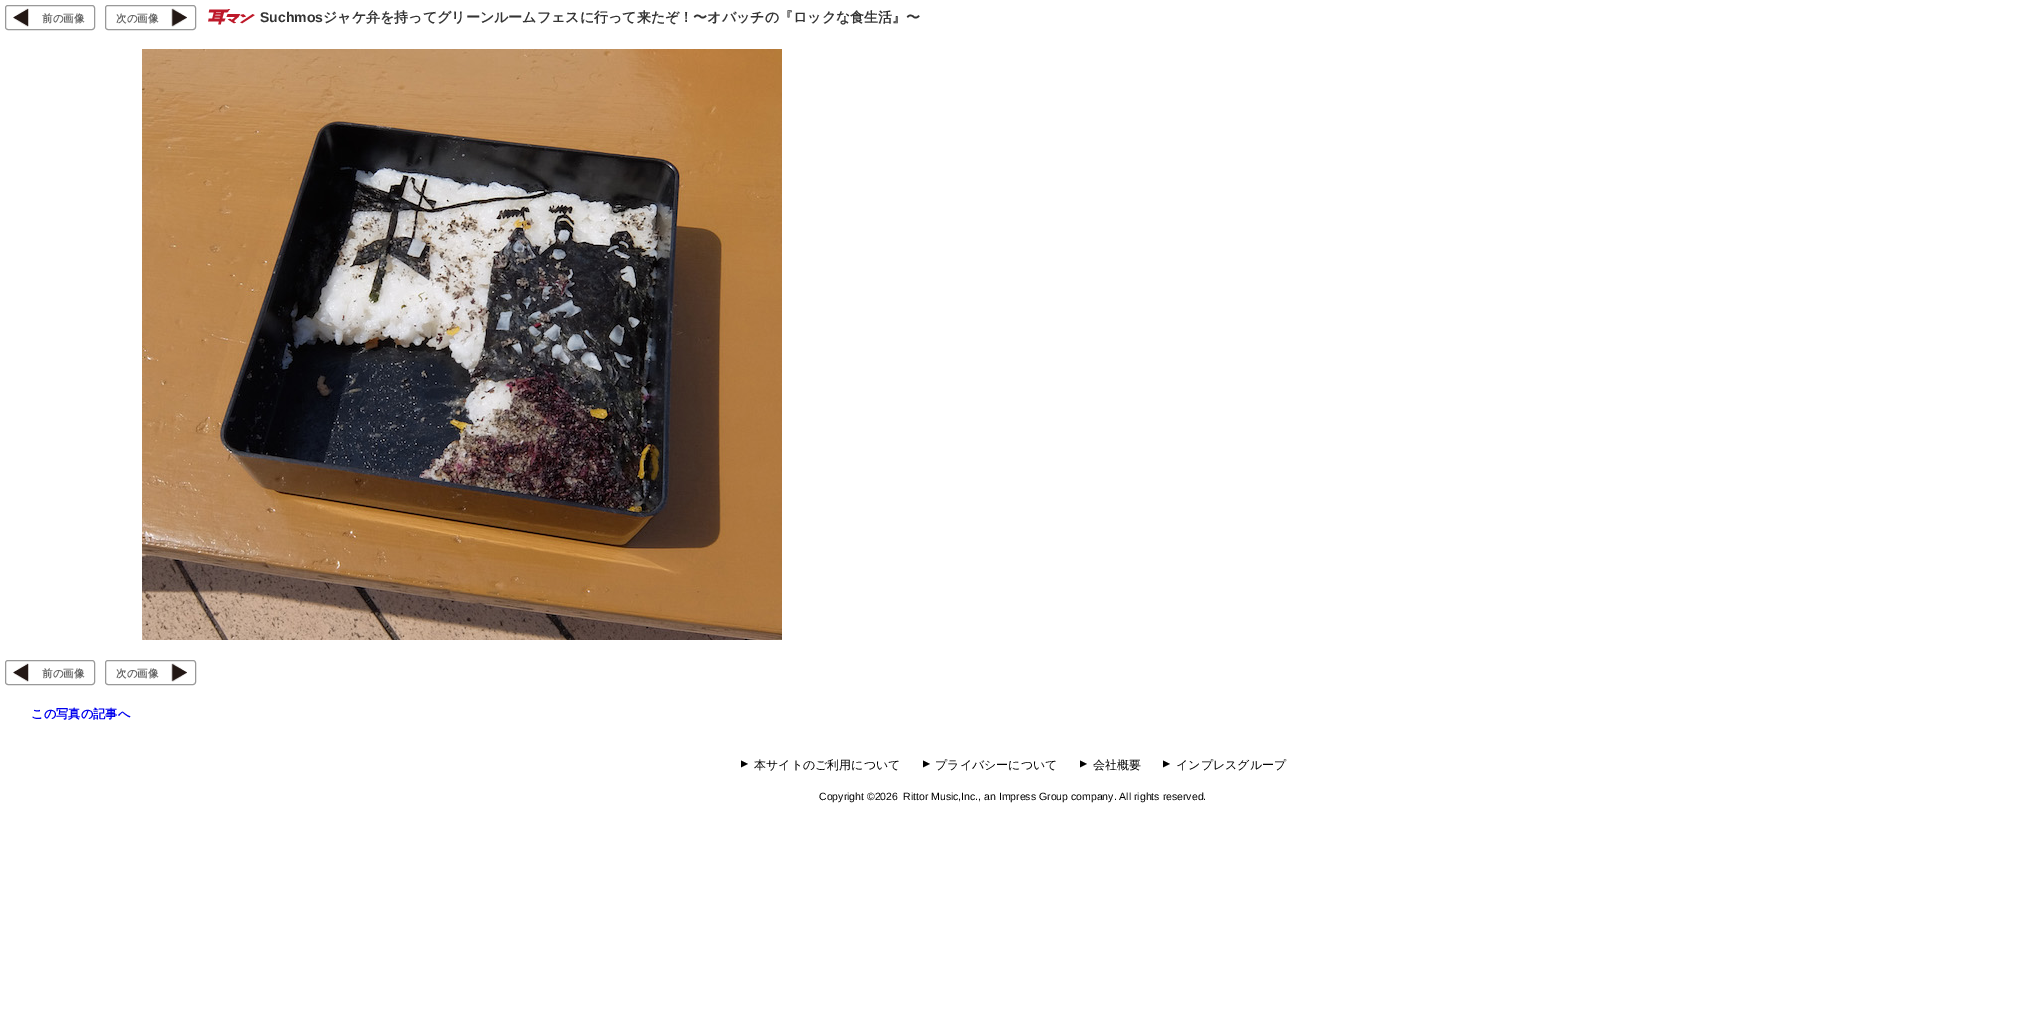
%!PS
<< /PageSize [2025 1010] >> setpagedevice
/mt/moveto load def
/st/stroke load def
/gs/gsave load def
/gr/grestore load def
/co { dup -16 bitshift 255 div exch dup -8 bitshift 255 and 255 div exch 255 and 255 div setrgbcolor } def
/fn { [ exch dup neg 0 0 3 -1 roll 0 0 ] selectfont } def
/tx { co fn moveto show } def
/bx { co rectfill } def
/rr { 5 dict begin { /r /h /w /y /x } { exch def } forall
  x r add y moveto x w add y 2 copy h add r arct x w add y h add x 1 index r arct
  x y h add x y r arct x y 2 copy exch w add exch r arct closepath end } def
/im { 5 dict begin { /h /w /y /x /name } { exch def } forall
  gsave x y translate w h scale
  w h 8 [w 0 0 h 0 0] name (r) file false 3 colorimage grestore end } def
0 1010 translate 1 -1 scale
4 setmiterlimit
0 0 2025 1010 16#FFFFFF bx
(media/1.raw) 13 8 16 19 im
16#999999 co
5.5 5.5 89 24 2.5 rr st
(media/2.raw) 171 8 16 19 im
105.5 5.5 90 24 2.5 rr st
(media/3.raw) 208 9 47 16 im
(media/4.raw) 142 49 640 591 im
(media/1.raw) 13 663 16 19 im
5.5 660.5 89 24 2.5 rr st
(media/2.raw) 171 663 16 19 im
105.5 660.5 90 24 2.5 rr st
(前の画像) 42 22 /WenQuanYiZenHei-Bold 10.5 16#666666 tx
(次の画像) 116 22 /WenQuanYiZenHei-Bold 10.5 16#666666 tx
(Suchmos) 260 22 /LiberationSans-Bold 14 16#333333 tx
(ジャケ弁を持ってグリーンルームフェスに行って来たぞ！〜オバッチの『ロックな食生活』〜) 323 22 /WenQuanYiZenHei-Bold 14 16#333333 tx
(前の画像) 42 677 /WenQuanYiZenHei-Bold 10.5 16#666666 tx
(次の画像) 116 677 /WenQuanYiZenHei-Bold 10.5 16#666666 tx
(この写真の記事へ) 31 718 /WenQuanYiZenHei-Bold 12.25 16#0000EE tx
/LiberationSans-Regular 12 fn
16#000000 co
gs 741 758 translate 90 rotate 0 0 mt (▲) show gr
(本サイトのご利用について) 754 769 /WenQuanYiZenHei-Medium 12 16#000000 tx
/LiberationSans-Regular 12 fn
gs 923 758 translate 90 rotate 0 0 mt (▲) show gr
(プライバシーについて) 935 769 /WenQuanYiZenHei-Medium 12 16#000000 tx
/LiberationSans-Regular 12 fn
gs 1080 758 translate 90 rotate 0 0 mt (▲) show gr
(会社概要) 1093 769 /WenQuanYiZenHei-Medium 12 16#000000 tx
/LiberationSans-Regular 12 fn
gs 1163 758 translate 90 rotate 0 0 mt (▲) show gr
(インプレスグループ) 1176 769 /WenQuanYiZenHei-Medium 12 16#000000 tx
(Copyright ©2026) 819 800 /LiberationSans-Regular 10.5 16#000000 tx
(Rittor Music,Inc., an Impress Group company. All rights reserved.) 903 800 /LiberationSans-Regular 10.5 16#000000 tx
showpage
